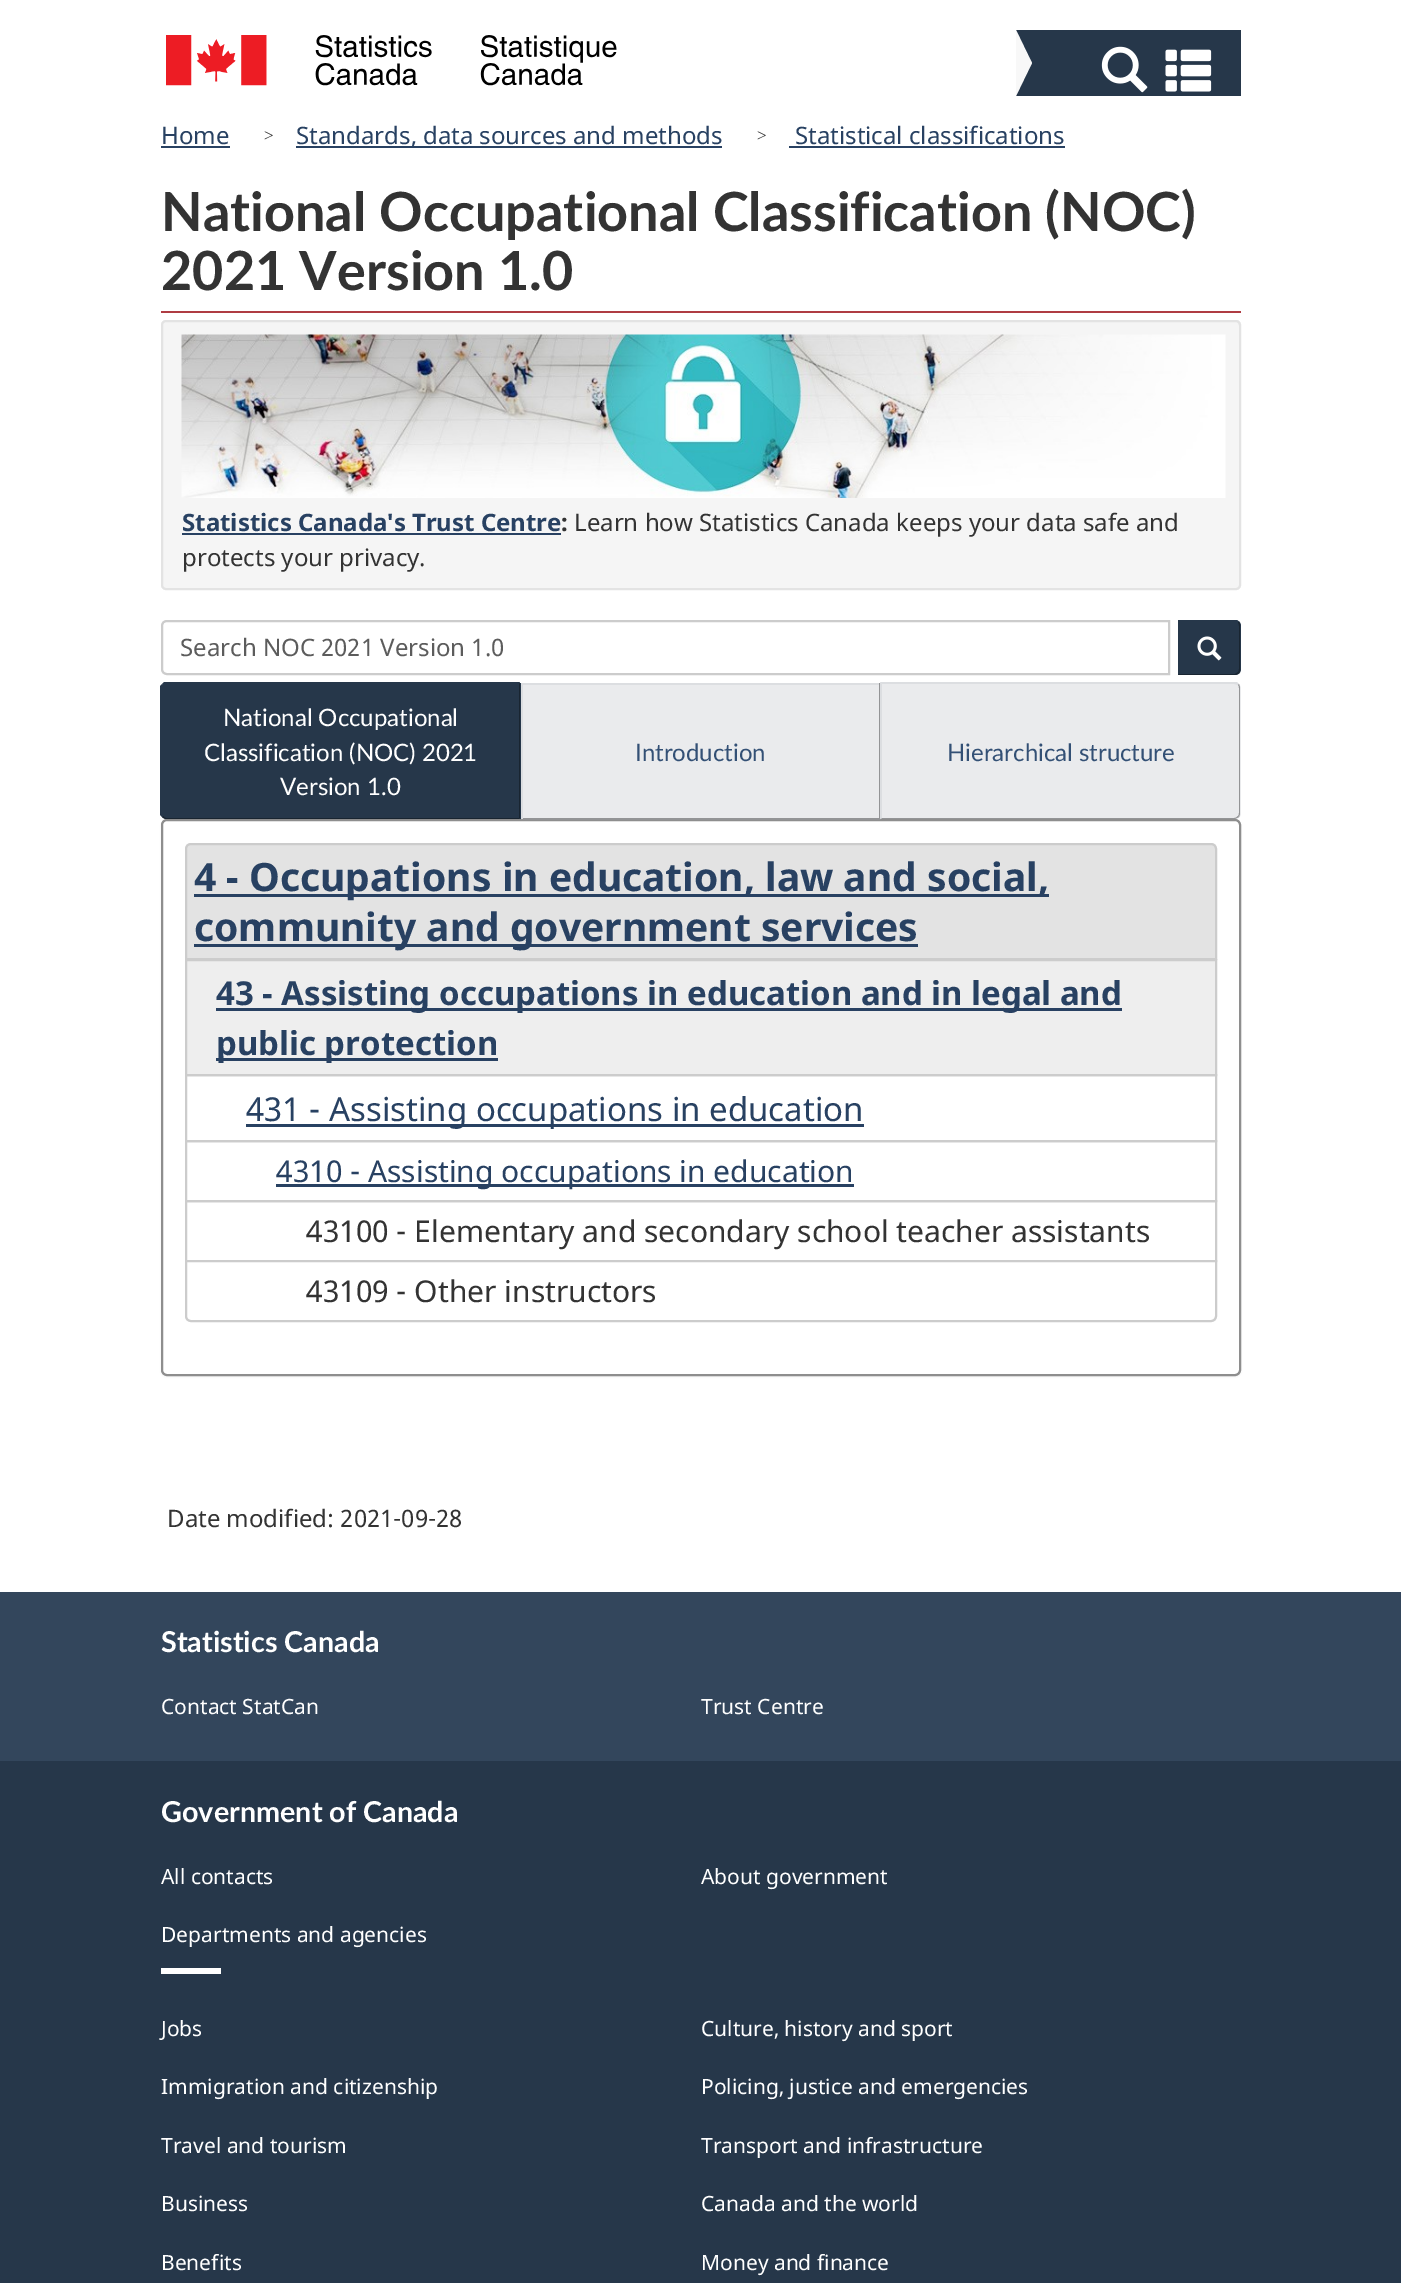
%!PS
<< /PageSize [1401 2283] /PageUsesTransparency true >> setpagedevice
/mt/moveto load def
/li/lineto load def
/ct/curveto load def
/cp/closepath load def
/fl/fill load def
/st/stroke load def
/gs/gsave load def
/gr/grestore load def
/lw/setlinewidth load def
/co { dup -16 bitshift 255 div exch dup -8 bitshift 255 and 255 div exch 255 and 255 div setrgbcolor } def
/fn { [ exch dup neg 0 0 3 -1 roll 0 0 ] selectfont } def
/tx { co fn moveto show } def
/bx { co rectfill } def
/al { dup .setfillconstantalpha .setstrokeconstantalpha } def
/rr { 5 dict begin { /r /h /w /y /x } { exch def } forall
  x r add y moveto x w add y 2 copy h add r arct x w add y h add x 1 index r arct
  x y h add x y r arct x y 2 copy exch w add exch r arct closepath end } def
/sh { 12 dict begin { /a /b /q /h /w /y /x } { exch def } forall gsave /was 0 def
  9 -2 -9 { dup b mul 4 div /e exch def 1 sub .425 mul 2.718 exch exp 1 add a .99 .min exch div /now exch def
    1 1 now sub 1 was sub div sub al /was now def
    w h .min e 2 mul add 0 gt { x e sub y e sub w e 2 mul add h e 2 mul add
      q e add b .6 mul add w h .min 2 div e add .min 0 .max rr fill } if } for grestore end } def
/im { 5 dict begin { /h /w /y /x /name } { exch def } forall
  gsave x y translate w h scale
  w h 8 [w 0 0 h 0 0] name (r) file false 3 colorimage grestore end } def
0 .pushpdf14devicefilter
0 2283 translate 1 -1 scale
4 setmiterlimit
0 0 1401 2283 16#FFFFFF bx
(media/1.raw) 166 35 451 51 im
1016 30 225 66 16#26374A bx
16#F8F8F8 co
1016 96 mt 1016 30 li 1032 63 li cp fl
(media/2.raw) 1101 46 47 47 im
(media/3.raw) 1165 49 47 43 im
161 146 69 2 16#284162 bx
296 146 426 2 16#284162 bx
789 146 276 2 16#284162 bx
161 311 1080 2 16#AF3C43 bx
16#F5F5F5 co
161 320 1080 270 5 rr fl
16#E9E9E9 co
165 322 mt 1236 322 li 1238 322 1239 324 1239 326 ct 1239 324 li 1239 322 1238 321 1236 321 ct 165 321 li 163 321 162 322 162 324 ct 162 326 li 162 324 163 322 165 322 ct cp fl
16#E3E3E3 co
2 lw
162 321 1078 268 4 rr st
(media/4.raw) 181 334 1045 164 im
182 533 379 2 16#284162 bx
16#CCCCCC co
167 621 mt 1169 621 li 1169 674 li 167 674 li 164 674 162 672 162 669 ct 162 626 li 162 623 164 621 167 621 ct cp st
16#26374A co
1178 620 mt 1235 620 li 1238.5 620 1241 622.5 1241 626 ct 1241 669 li 1241 672.5 1238.5 675 1235 675 ct 1178 675 li cp fl
1178 620 mt 1179 621 li 1234 621 li 1236 621 1237 622 1238 622 ct 1238 620 1236 620 1234 620 ct cp fl
16#192531 co
1238 622 mt 1240 622 1240 624 1240 626 ct 1240 669 li 1240 670 1240 672 1239 673 ct 1238 672 li 1239 671 1239 670 1239 669 ct 1239 626 li 1239 624 1238 623 1238 622 ct cp fl
1178 675 mt 1234 675 li 1236 675 1238 674 1239 673 ct 1238 672 li 1235 674 li 1179 674 li cp fl
(media/5.raw) 1197 636 25 25 im
16#000000 co
161 821 1080 556 6 1 .05 sh
16#26374A co
167 683 mt 521 683 li 521 819 li 167 819 li 163.5 819 161 816.5 161 813 ct 161 689 li 161 685.5 163.5 683 167 683 ct cp fl
166 684 mt 163 685 li 162 684 li 164 682 li 520 682 li 519 684 li cp fl
16#192531 co
520 683 mt 520 818 li 519 818 li 519 684 li cp fl
166 819 mt 520 819 li 519 818 li 166 818 li 165 818 164 817 163 816 ct 162 817 li 163 818 165 819 166 819 ct cp fl
16#26374A co
160 686 mt 162 684 li 163 685 li 162 688 li 162 813 li 163 816 li 162 817 li 160 815 li cp fl
523 685 356 133 16#EAEBED bx
521 683 360 2 16#DCDEE1 bx
879 683 1 136 16#939496 bx
16#FFFFFF co
162 820 1078 555 5 rr gs fl gr
16#8E8E8E co
st
521 818 360 2 16#939496 bx
521 683 2 136 16#DCDEE1 bx
16#EAEBED co
881 683 mt 1235 683 li 1238.5 683 1241 685.5 1241 689 ct 1241 813 li 1241 816.5 1238.5 819 1235 819 ct 881 819 li cp fl
16#DCDEE1 co
882 684 mt 880 682 li 1237 682 li 1239 684 li 1238 685 li 1237 685 1236 684 1234 684 ct cp fl
16#939496 co
1239 684 mt 1240 687 li 1240 814 li 1239 817 li 1238 816 li 1239 815 1239 814 1239 813 ct 1239 688 li 1239 687 1239 686 1238 685 ct cp fl
880 819 mt 1235 819 li 1239 817 li 1238 816 li 1237 817 1236 818 1234 818 ct 882 818 li cp fl
16#DCDEE1 co
882 684 mt 880 682 li 880 819 li 882 818 li cp fl
16#E3E3E3 co
191 844 mt 1211 844 li 1214 844 1216 846 1216 849 ct 1216 959 li 186 959 li 186 849 li 186 846 188 844 191 844 ct cp gs fl gr
16#CCCCCC co
st
194 894 855 3 16#284162 bx
194 944 724 3 16#284162 bx
16#EEEEEE co
186 960 mt 1216 960 li 1216 1075 li 186 1075 li cp gs fl gr
16#CCCCCC co
st
216 1008 906 3 16#284162 bx
216 1058 282 3 16#284162 bx
16#CCCCCC co
186 1075 1030 66 rectstroke
246 1124 618 3 16#284162 bx
16#CCCCCC co
186 1141 1030 60 rectstroke
276 1184 578 3 16#284162 bx
16#CCCCCC co
186 1201 1030 60 rectstroke
16#FFFFFF co
186 1261 mt 1216 1261 li 1216 1316 li 1216 1319 1214 1321 1211 1321 ct 191 1321 li 188 1321 186 1319 186 1316 ct cp gs fl gr
16#CCCCCC co
st
0 1592 1401 169 16#33465C bx
0 1761 1401 522 16#26374A bx
161 1968 60 6 16#FFFFFF bx
(Home) 161 144 /NotoSans-Regular 24 16#284162 tx
(>) 264 141 /LiberationSerif-Regular 17 16#333333 tx
(Standards, data sources and methods) 296 144 /NotoSans-Regular 24 16#284162 tx
(>) 757 141 /LiberationSerif-Regular 17 16#333333 tx
(Statistical classifications) 795 144 /NotoSans-Regular 24 16#284162 tx
(National Occupational Classification \(NOC\)) 161 231 /Lato-Bold 54 16#333333 tx
(2021 Version 1.0) 161 290 /Lato-Bold 54 16#333333 tx
(Statistics Canada's Trust Centre) 182 531 /NotoSans-Bold 24 16#284162 tx
(:) 561 531 /NotoSans-Bold 24 16#333333 tx
(Learn how Statistics Canada keeps your data safe and) 574 531 /NotoSans-Regular 24 16#333333 tx
(protects your privacy.) 182 566 /NotoSans-Regular 24 16#333333 tx
(Search NOC 2021 Version 1.0) 180 656 /NotoSans-Regular 24 16#5C5C5C tx
(National Occupational) 223 726 /Lato-Regular 24 16#FFFFFF tx
(Classification \(NOC\) 2021) 204 761 /Lato-Regular 24 16#FFFFFF tx
(Version 1.0) 280 795 /Lato-Regular 24 16#FFFFFF tx
(Introduction) 635 761 /Lato-Regular 24 16#335075 tx
(Hierarchical structure) 947 761 /Lato-Regular 24 16#335075 tx
(4 - Occupations in education, law and social,) 194 891 /NotoSans-Bold 39 16#284162 tx
(community and government services) 194 941 /NotoSans-Bold 39 16#284162 tx
(43 - Assisting occupations in education and in legal and) 216 1005 /NotoSans-Bold 33 16#284162 tx
(public protection) 216 1055 /NotoSans-Bold 33 16#284162 tx
(431 - Assisting occupations in education) 246 1121 /NotoSans-Regular 33 16#284162 tx
(4310 - Assisting occupations in education) 276 1182 /NotoSans-Regular 30 16#284162 tx
(43100 - Elementary and secondary school teacher assistants) 306 1242 /NotoSans-Regular 30 16#333333 tx
(43109 - Other instructors) 306 1302 /NotoSans-Regular 30 16#333333 tx
(Date modified: 2021-09-28) 167 1527 /NotoSans-Regular 24 16#333333 tx
(Statistics Canada) 161 1652 /Lato-Bold 28.75 16#FFFFFF tx
(Contact StatCan) 161 1714 /NotoSans-Regular 21 16#FFFFFF tx
(Trust Centre) 701 1714 /NotoSans-Regular 21 16#FFFFFF tx
(Government of Canada) 161 1822 /Lato-Bold 28.75 16#FFFFFF tx
(All contacts) 161 1884 /NotoSans-Regular 21 16#FFFFFF tx
(About government) 701 1884 /NotoSans-Regular 21 16#FFFFFF tx
(Departments and agencies) 161 1942 /NotoSans-Regular 21 16#FFFFFF tx
(Jobs) 161 2036 /NotoSans-Regular 21 16#FFFFFF tx
(Culture, history and sport) 701 2036 /NotoSans-Regular 21 16#FFFFFF tx
(Immigration and citizenship) 161 2094 /NotoSans-Regular 21 16#FFFFFF tx
(Policing, justice and emergencies) 701 2094 /NotoSans-Regular 21 16#FFFFFF tx
(Travel and tourism) 161 2153 /NotoSans-Regular 21 16#FFFFFF tx
(Transport and infrastructure) 701 2153 /NotoSans-Regular 21 16#FFFFFF tx
(Business) 161 2211 /NotoSans-Regular 21 16#FFFFFF tx
(Canada and the world) 701 2211 /NotoSans-Regular 21 16#FFFFFF tx
(Benefits) 161 2270 /NotoSans-Regular 21 16#FFFFFF tx
(Money and finance) 701 2270 /NotoSans-Regular 21 16#FFFFFF tx
.poppdf14devicefilter showpage
